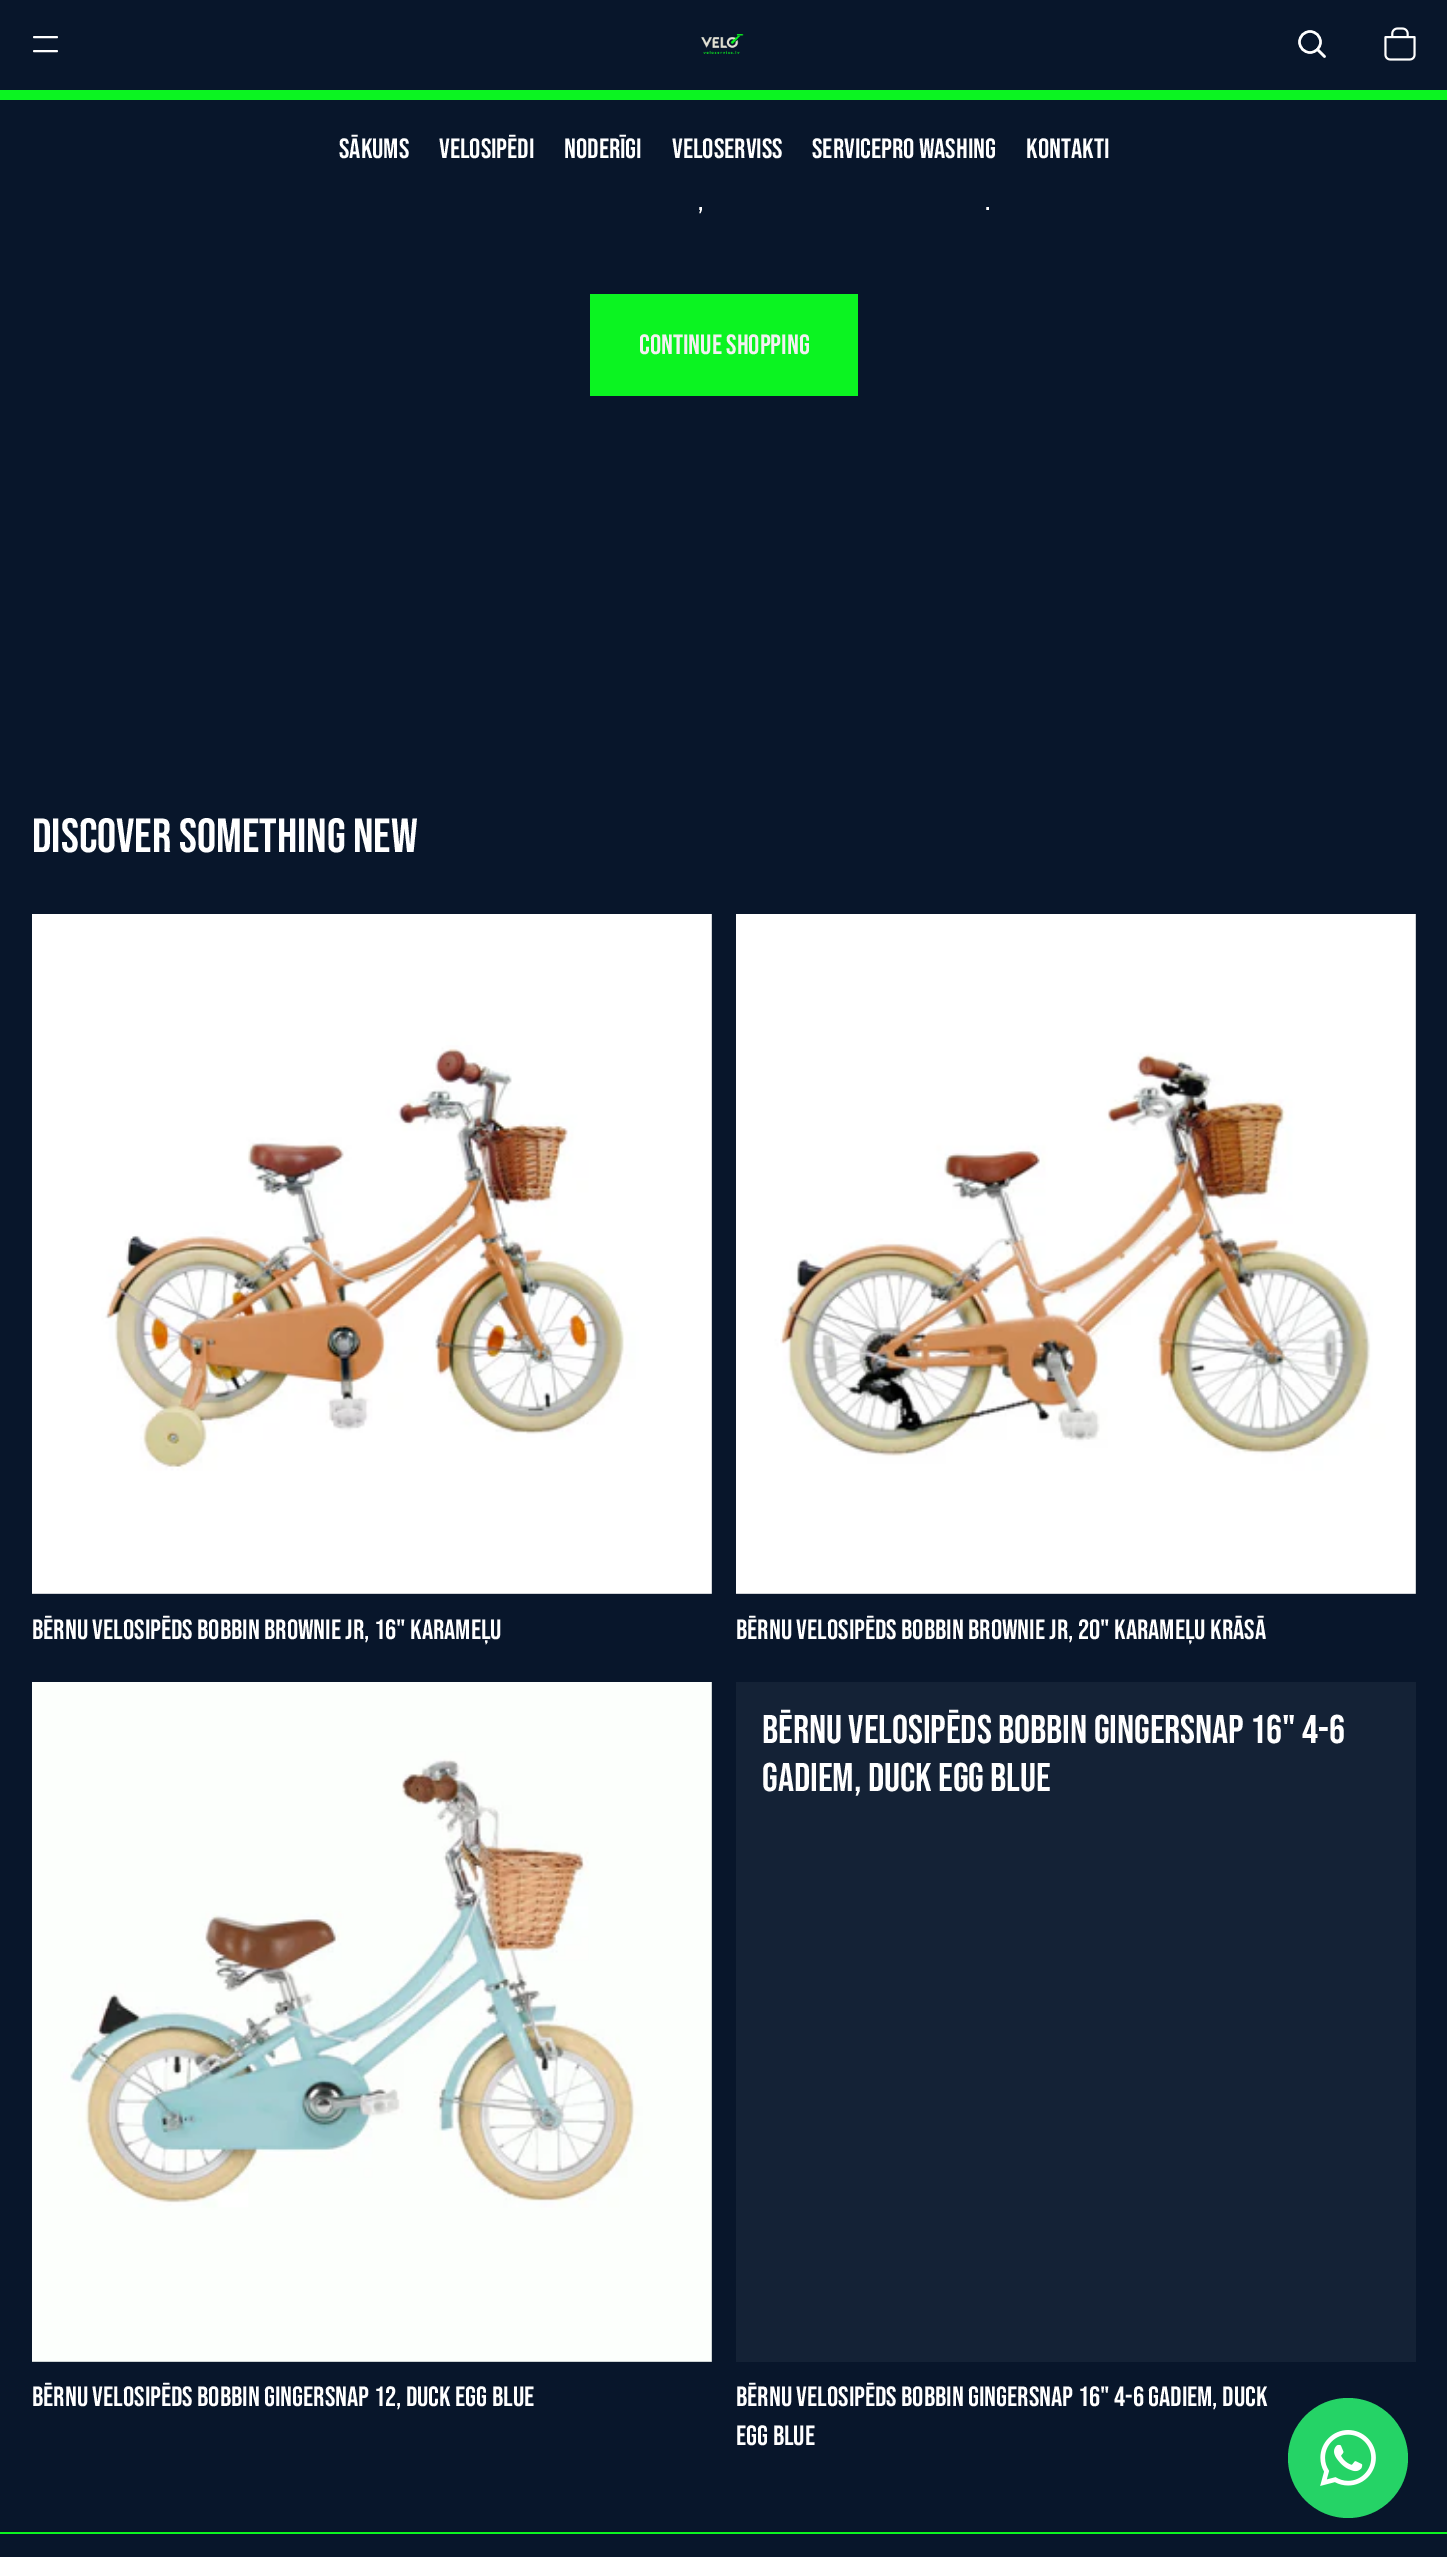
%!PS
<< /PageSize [1447 2557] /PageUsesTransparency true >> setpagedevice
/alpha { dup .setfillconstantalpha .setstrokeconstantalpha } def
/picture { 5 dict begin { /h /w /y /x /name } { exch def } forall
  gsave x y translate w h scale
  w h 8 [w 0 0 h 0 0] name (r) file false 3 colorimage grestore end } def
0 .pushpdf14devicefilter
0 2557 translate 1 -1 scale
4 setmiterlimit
0.031 0.086 0.169 setrgbcolor
0 0 1447 2557 rectfill
0.043 0.957 0.129 setrgbcolor
0 90 1447 10 rectfill
1 setgray
1.9 setlinewidth
1 setlinecap
newpath 34 37 moveto 57 37 lineto 34 51 moveto 57 51 lineto stroke
(img1.rgb) 700 34 44 20 picture
2.2 setlinewidth
0 setlinecap
newpath 1310 42 10.5 0 360 arc closepath stroke
1 setlinecap
1 setlinejoin
newpath 1317.5 49.5 moveto 1324.5 56.5 lineto stroke
0.7 alpha
0 setlinecap
0 setlinejoin
newpath 1310 42 10.5 0 360 arc closepath stroke
1 setlinecap
1 setlinejoin
newpath 1317.5 49.5 moveto 1324.5 56.5 lineto stroke
1 alpha
(img2.rgb) 1384 27 32 34 picture
/BebasNeue-Regular [28 0 0 -28 0 0] selectfont
339 158 moveto (SĀKUMS) show
439 158 moveto (VELOSIPĒDI) show
564 158 moveto (NODERĪGI) show
672 158 moveto (VELOSERVISS) show
812 158 moveto (SERVICEPRO WASHING) show
1026 158 moveto (KONTAKTI) show
698 210 moveto (,) show
985 210 moveto (.) show
0.043 0.957 0.129 setrgbcolor
590 294 268 102 rectfill
0.957 0.941 0.949 setrgbcolor
639 354 moveto (Continue shopping) show
/BebasNeue-Regular [48 0 0 -48 0 0] selectfont
1 setgray
32 852 moveto (Discover something new) show
(img3.rgb) 32 914 680 680 picture
/BebasNeue-Regular [28 0 0 -28 0 0] selectfont
32 1639 moveto (Bērnu velosipēds BOBBIN Brownie JR, 16" Karameļu) show
(img4.rgb) 736 914 680 680 picture
736 1639 moveto (Bērnu velosipēds BOBBIN Brownie JR, 20" Karameļu krāsā) show
(img5.rgb) 32 1682 680 680 picture
32 2406 moveto (Bērnu velosipēds Bobbin Gingersnap 12, Duck Egg Blue) show
0.078 0.133 0.212 setrgbcolor
736 1682 680 680 rectfill
/BebasNeue-Regular [40 0 0 -40 0 0] selectfont
1 setgray
762 1743 moveto (Bērnu velosipēds Bobbin Gingersnap 16" 4-6) show
762 1791 moveto (gadiem, Duck Egg Blue) show
/BebasNeue-Regular [28 0 0 -28 0 0] selectfont
736 2406 moveto (Bērnu velosipēds Bobbin Gingersnap 16" 4-6 gadiem, Duck) show
736 2445 moveto (Egg Blue) show
0.145 0.827 0.4 setrgbcolor
newpath 1348 2458 60 0 360 arc closepath fill
(img6.rgb) 1320 2430 56 56 picture
0.043 0.957 0.129 setrgbcolor
0 2532 1447 2 rectfill
.poppdf14devicefilter showpage
